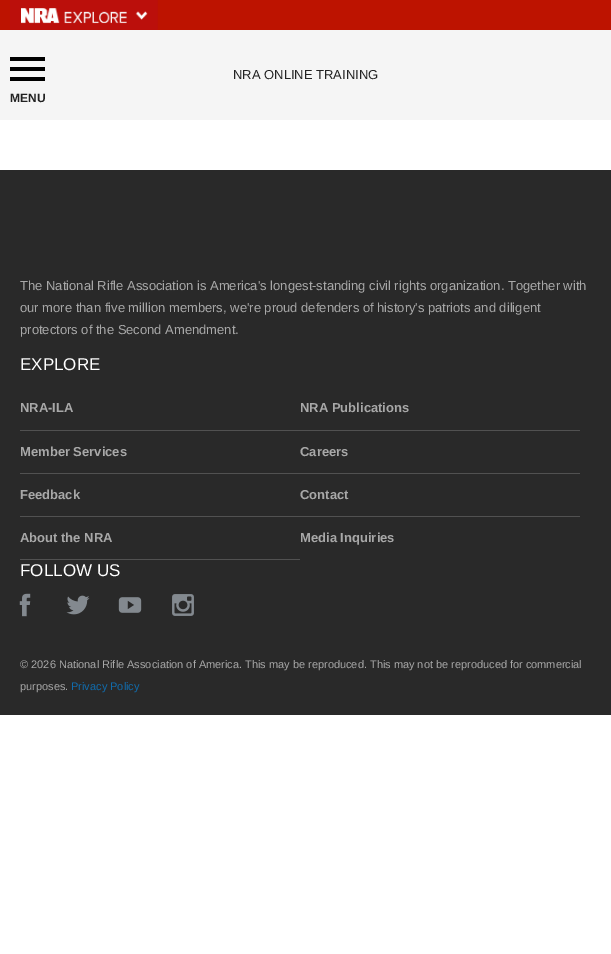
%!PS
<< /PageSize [611 954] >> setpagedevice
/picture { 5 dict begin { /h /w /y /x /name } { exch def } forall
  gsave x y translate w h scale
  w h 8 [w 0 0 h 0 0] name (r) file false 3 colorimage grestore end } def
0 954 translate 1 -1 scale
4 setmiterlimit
1 setgray
0 0 611 954 rectfill
0.741 0.075 0 setrgbcolor
0 0 611 30 rectfill
(img1.rgb) 10 0 148 30 picture
0.961 setgray
0 30 611 90 rectfill
/LiberationSans-Regular [13 0 0 -13 0 0] selectfont
0.133 setgray
233 79 moveto (NRA ONLINE TRAINING) show
0 setgray
10 67 35 4 rectfill
10 57 35 4 rectfill
10 77 35 4 rectfill
/LiberationSans-Bold [12 0 0 -12 0 0] selectfont
0.133 setgray
10 102 moveto (MENU) show
0.161 setgray
0 170 611 545 rectfill
/LiberationSans-Regular [13 0 0 -13 0 0] selectfont
0.659 setgray
20 290 moveto (The National Rifle Association is America's longest-standing civil rights organization. Together with) show
20 312 moveto (our more than five million members, we're proud defenders of history's patriots and diligent) show
20 334 moveto (protectors of the Second Amendment.) show
/LiberationSans-Regular [17 0 0 -17 0 0] selectfont
1 setgray
20 370 moveto (EXPLORE) show
0.318 setgray
20 430 560 1 rectfill
/LiberationSans-Bold [13 0 0 -13 0 0] selectfont
0.659 setgray
20 412 moveto (NRA-ILA) show
300 412 moveto (NRA Publications) show
0.318 setgray
20 473 560 1 rectfill
0.659 setgray
20 456 moveto (Member Services) show
300 456 moveto (Careers) show
0.318 setgray
20 516 560 1 rectfill
0.659 setgray
20 499 moveto (Feedback) show
300 499 moveto (Contact) show
0.318 setgray
20 559 280 1 rectfill
0.659 setgray
20 542 moveto (About the NRA) show
300 542 moveto (Media Inquiries) show
/LiberationSans-Regular [17 0 0 -17 0 0] selectfont
1 setgray
20 576 moveto (FOLLOW US) show
(img2.rgb) 19 593 12 24 picture
(img3.rgb) 66 595 24 20 picture
(img4.rgb) 118 597 24 16 picture
(img5.rgb) 172 594 22 22 picture
/LiberationSans-Regular [11 0 0 -11 0 0] selectfont
0.659 setgray
20 668 moveto (© 2026 National Rifle Association of America. This may be reproduced. This may not be reproduced for commercial) show
20 690 moveto (purposes.) show
0.067 0.424 0.675 setrgbcolor
71 690 moveto (Privacy Policy) show
showpage
